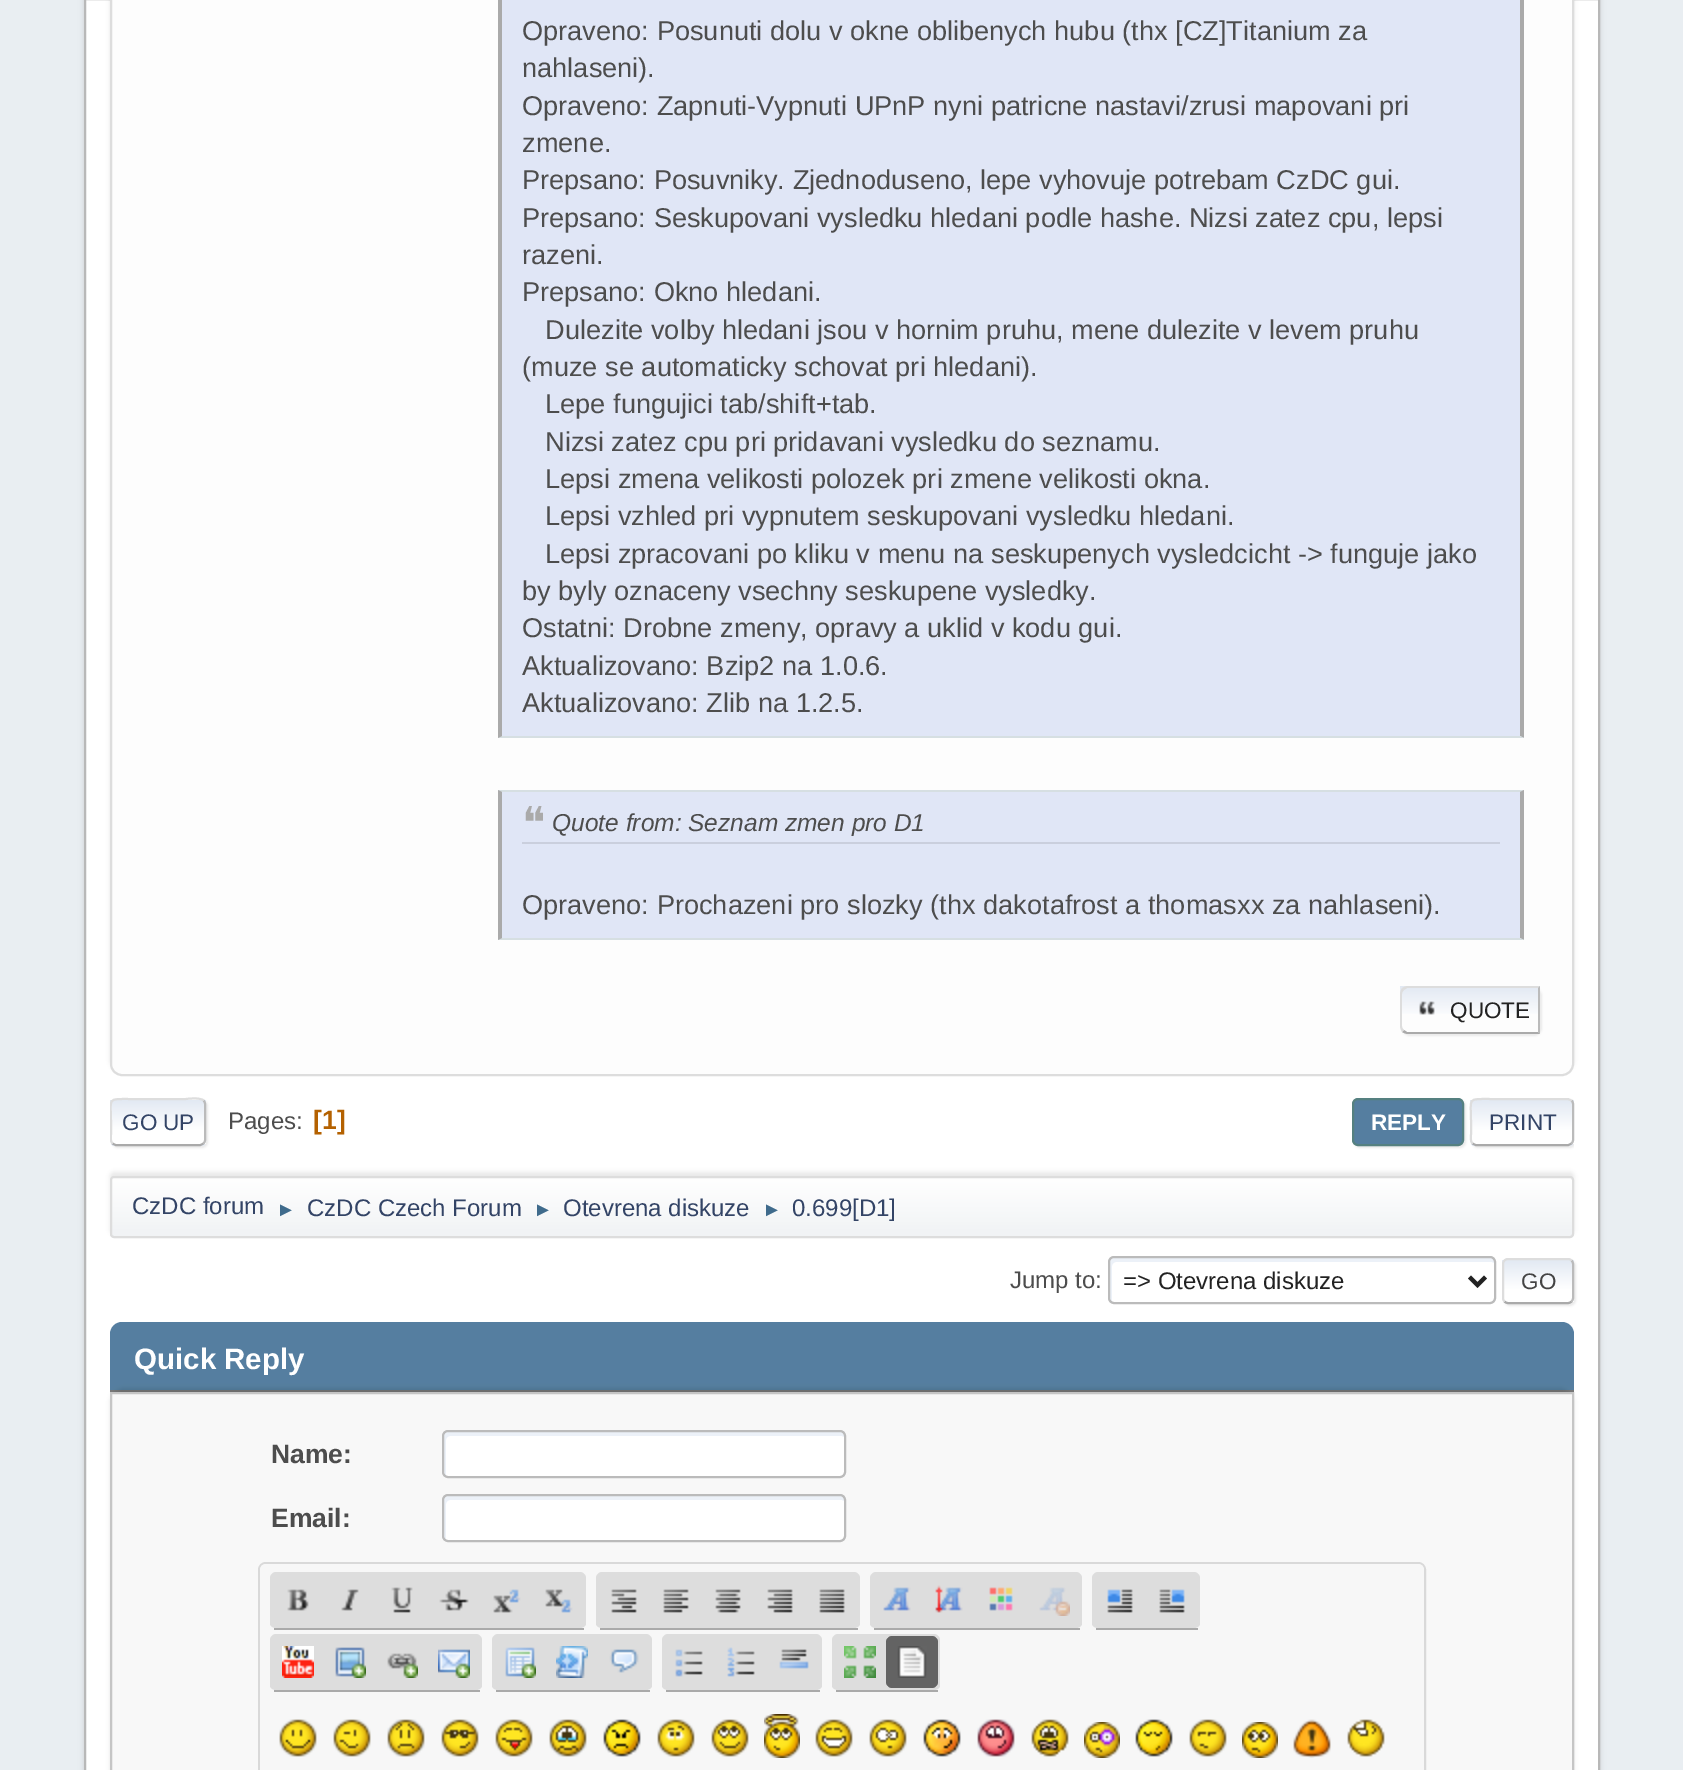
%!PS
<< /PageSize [1683 1770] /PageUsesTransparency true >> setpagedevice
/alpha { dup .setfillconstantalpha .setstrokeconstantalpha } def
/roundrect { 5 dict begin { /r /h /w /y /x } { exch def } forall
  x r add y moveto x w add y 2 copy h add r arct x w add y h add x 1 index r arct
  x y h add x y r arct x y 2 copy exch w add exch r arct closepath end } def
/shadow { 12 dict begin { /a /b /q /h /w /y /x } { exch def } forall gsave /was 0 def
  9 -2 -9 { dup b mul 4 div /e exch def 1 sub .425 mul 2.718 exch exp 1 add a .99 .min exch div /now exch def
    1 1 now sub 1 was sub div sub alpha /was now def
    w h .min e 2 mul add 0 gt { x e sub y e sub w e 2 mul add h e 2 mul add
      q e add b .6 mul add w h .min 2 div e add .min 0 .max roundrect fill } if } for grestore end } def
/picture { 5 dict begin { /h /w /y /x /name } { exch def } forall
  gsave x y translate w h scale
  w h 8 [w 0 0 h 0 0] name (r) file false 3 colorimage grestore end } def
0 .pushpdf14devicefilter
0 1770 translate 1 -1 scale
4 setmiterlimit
0.914 0.933 0.949 setrgbcolor
0 0 1683 1770 rectfill
0 setgray
84 -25 1516 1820 16 3 0.14 shadow
1 setgray
newpath 85 -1 moveto 1599 -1 lineto 1599 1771 lineto 85 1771 lineto closepath gsave fill grestore
0.722 setgray
2 setlinewidth
stroke
0 setgray
110 -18 1464 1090 12 2 0.1 shadow
0.992 setgray
111 -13 1462 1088 11 roundrect gsave fill grestore
0.867 setgray
stroke
0.878 0.902 0.965 setrgbcolor
502 0 1018 736 rectfill
0.667 setgray
newpath 1524 -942 moveto 1524 738 lineto 1520 736 lineto 1520 -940 lineto closepath fill
0.839 0.875 0.886 setrgbcolor
newpath 1524 738 moveto 498 738 lineto 502 736 lineto 1520 736 lineto closepath fill
0.667 setgray
newpath 498 738 moveto 498 -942 lineto 502 -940 lineto 502 736 lineto closepath fill
/LiberationSans-Regular [27.2 0 0 -27.2 0 0] selectfont
0.302 setgray
522 40 moveto (Opraveno: Posunuti dolu v okne oblibenych hubu \(thx [CZ]Titanium za) show
522 77 moveto (nahlaseni\).) show
522 115 moveto (Opraveno: Zapnuti-Vypnuti UPnP nyni patricne nastavi/zrusi mapovani pri) show
522 152 moveto (zmene.) show
522 189 moveto (Prepsano: Posuvniky. Zjednoduseno, lepe vyhovuje potrebam CzDC gui.) show
522 227 moveto (Prepsano: Seskupovani vysledku hledani podle hashe. Nizsi zatez cpu, lepsi) show
522 264 moveto (razeni.) show
522 301 moveto (Prepsano: Okno hledani.) show
545 339 moveto (Dulezite volby hledani jsou v hornim pruhu, mene dulezite v levem pruhu) show
522 376 moveto (\(muze se automaticky schovat pri hledani\).) show
545 413 moveto (Lepe fungujici tab/shift+tab.) show
545 451 moveto (Nizsi zatez cpu pri pridavani vysledku do seznamu.) show
545 488 moveto (Lepsi zmena velikosti polozek pri zmene velikosti okna.) show
545 525 moveto (Lepsi vzhled pri vypnutem seskupovani vysledku hledani.) show
545 563 moveto (Lepsi zpracovani po kliku v menu na seskupenych vysledcicht -> funguje jako) show
522 600 moveto (by byly oznaceny vsechny seskupene vysledky.) show
522 637 moveto (Ostatni: Drobne zmeny, opravy a uklid v kodu gui.) show
522 675 moveto (Aktualizovano: Bzip2 na 1.0.6.) show
522 712 moveto (Aktualizovano: Zlib na 1.2.5.) show
0.878 0.902 0.965 setrgbcolor
502 792 1018 146 rectfill
0.839 0.875 0.886 setrgbcolor
newpath 498 790 moveto 1524 790 lineto 1520 792 lineto 502 792 lineto closepath fill
0.667 setgray
newpath 1524 790 moveto 1524 940 lineto 1520 938 lineto 1520 792 lineto closepath fill
0.839 0.875 0.886 setrgbcolor
newpath 1524 940 moveto 498 940 lineto 502 938 lineto 1520 938 lineto closepath fill
0.667 setgray
newpath 498 940 moveto 498 790 lineto 502 792 lineto 502 938 lineto closepath fill
0.792 0.812 0.867 setrgbcolor
522 842 978 2 rectfill
/DejaVuSans-Regular [44 0 0 -44 0 0] selectfont
0.667 setgray
522 838 moveto (❝) show
/LiberationSans-Italic [24.5 0 0 -24.5 0 0] selectfont
0.302 setgray
552 831 moveto (Quote from: Seznam zmen pro D1) show
/LiberationSans-Regular [27.2 0 0 -27.2 0 0] selectfont
522 914 moveto (Opraveno: Prochazeni pro slozky \(thx dakotafrost a thomasxx za nahlaseni\).) show
gsave newpath 1400 986 moveto 1540 986 lineto 1540 1014 lineto 1400 1014 lineto closepath clip newpath
<< /ShadingType 2 /ColorSpace /DeviceRGB /Coords [1470 986 1470 1034] /Extend [true true] /Function << /FunctionType 3 /Domain [0 1] /Functions [<< /FunctionType 2 /Domain [0 1] /C0 [0.886 0.914 0.953] /C1 [1 1 1] /N 1 >> << /FunctionType 2 /Domain [0 1] /C0 [1 1 1] /C1 [1 1 1] /N 1 >>] /Bounds [0.7] /Encode [0 1 0 1] >> >> shfill grestore
gsave
newpath 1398 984 moveto 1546 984 lineto 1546 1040 lineto 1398 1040 lineto closepath 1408 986 moveto 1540 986 lineto 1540 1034 lineto 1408 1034 lineto 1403.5 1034 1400 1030.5 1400 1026 curveto 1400 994 lineto 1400 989.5 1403.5 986 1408 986 curveto closepath eoclip newpath
0.867 setgray
1402 988 140 48 8 1 0.57 shadow
grestore
0.867 setgray
newpath 1408 986 moveto 1406 986 1404 987 1402 988 curveto 1404 990 lineto 1407 988 lineto 1538 988 lineto 1540 986 lineto closepath fill
0.733 setgray
newpath 1540 986 moveto 1538 988 lineto 1538 1032 lineto 1540 1034 lineto closepath fill
0.667 setgray
newpath 1540 1034 moveto 1538 1032 lineto 1407 1032 lineto 1404 1030 lineto 1402 1032 lineto 1404 1033 1406 1034 1408 1034 curveto closepath fill
0.867 setgray
newpath 1400 994 moveto 1400 1026 lineto 1400 1028 1401 1030 1402 1032 curveto 1404 1030 lineto 1403 1029 1402 1028 1402 1026 curveto 1402 994 lineto 1402 992 1403 991 1404 990 curveto 1402 988 lineto 1401 990 1400 992 1400 994 curveto closepath fill
(img1.rgb) 1419 1001 16 14 picture
/LiberationSans-Regular [22.5 0 0 -22.5 0 0] selectfont
0.133 setgray
1450 1018 moveto (QUOTE) show
0.867 setgray
112 1100 96 48 6 1 0.57 shadow
1 setgray
110 1098 96 48 6 roundrect fill
gsave
110 1098 96 48 6 roundrect clip newpath
gsave newpath 110 1100 moveto 206 1100 lineto 206 1144 lineto 110 1144 lineto closepath clip newpath
<< /ShadingType 2 /ColorSpace /DeviceRGB /Coords [158 1100 158 1144] /Extend [true true] /Function << /FunctionType 3 /Domain [0 1] /Functions [<< /FunctionType 2 /Domain [0 1] /C0 [0.886 0.914 0.953] /C1 [1 1 1] /N 1 >> << /FunctionType 2 /Domain [0 1] /C0 [1 1 1] /C1 [1 1 1] /N 1 >>] /Bounds [0.7] /Encode [0 1 0 1] >> >> shfill grestore
gsave newpath 110 1144 moveto 206 1144 lineto 206 1146 lineto 110 1146 lineto closepath clip newpath
<< /ShadingType 2 /ColorSpace /DeviceRGB /Coords [158 1144 158 1188] /Extend [true true] /Function << /FunctionType 3 /Domain [0 1] /Functions [<< /FunctionType 2 /Domain [0 1] /C0 [0.886 0.914 0.953] /C1 [1 1 1] /N 1 >> << /FunctionType 2 /Domain [0 1] /C0 [1 1 1] /C1 [1 1 1] /N 1 >>] /Bounds [0.7] /Encode [0 1 0 1] >> >> shfill grestore
grestore
0.733 setgray
newpath 203.5 1100.5 moveto 204.5 1101.5 205 1102.5 205 1104 curveto 205 1140 lineto 205 1141.5 204.5 1142.5 203.5 1143.5 curveto stroke
0.667 setgray
newpath 203.5 1143.5 moveto 200.5 1145 lineto 115.5 1145 lineto 112.5 1143.5 lineto stroke
gsave
110 1084 1464 76 rectclip
0.867 setgray
newpath 112.5 1143.5 moveto 110 1141 111 1136.5 111 1134 curveto 111 1122 lineto 111 1097.5 106.5 1099 130 1099 curveto 186 1099 lineto 186 1099 200 1097 203.5 1100.5 curveto stroke
grestore
0.2 0.267 0.4 setrgbcolor
122 1130 moveto (GO UP) show
/LiberationSans-Regular [24 0 0 -24 0 0] selectfont
0.302 setgray
228 1129 moveto (Pages:) show
/LiberationSans-Bold [26.5 0 0 -26.5 0 0] selectfont
0.706 0.38 0 setrgbcolor
313 1129 moveto ([1]) show
0.867 setgray
1354 1100 112 48 6 1 0.57 shadow
0.333 0.494 0.627 setrgbcolor
1353 1099 110 46 5 roundrect gsave fill grestore
0.333 0.502 0.502 setrgbcolor
stroke
/LiberationSans-Bold [22.5 0 0 -22.5 0 0] selectfont
1 setgray
1371 1130 moveto (REPLY) show
gsave
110 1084 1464 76 rectclip
0.867 setgray
1472 1100 104 48 6 1 0.57 shadow
grestore
1470 1098 104 48 6 roundrect fill
gsave
1470 1098 104 48 6 roundrect clip newpath
gsave newpath 1470 1100 moveto 1574 1100 lineto 1574 1144 lineto 1470 1144 lineto closepath clip newpath
<< /ShadingType 2 /ColorSpace /DeviceRGB /Coords [1522 1100 1522 1144] /Extend [true true] /Function << /FunctionType 3 /Domain [0 1] /Functions [<< /FunctionType 2 /Domain [0 1] /C0 [0.886 0.914 0.953] /C1 [1 1 1] /N 1 >> << /FunctionType 2 /Domain [0 1] /C0 [1 1 1] /C1 [1 1 1] /N 1 >>] /Bounds [0.7] /Encode [0 1 0 1] >> >> shfill grestore
gsave newpath 1470 1144 moveto 1574 1144 lineto 1574 1146 lineto 1470 1146 lineto closepath clip newpath
<< /ShadingType 2 /ColorSpace /DeviceRGB /Coords [1522 1144 1522 1188] /Extend [true true] /Function << /FunctionType 3 /Domain [0 1] /Functions [<< /FunctionType 2 /Domain [0 1] /C0 [0.886 0.914 0.953] /C1 [1 1 1] /N 1 >> << /FunctionType 2 /Domain [0 1] /C0 [1 1 1] /C1 [1 1 1] /N 1 >>] /Bounds [0.7] /Encode [0 1 0 1] >> >> shfill grestore
grestore
0.733 setgray
newpath 1571.5 1100.5 moveto 1572.5 1101.5 1573 1102.5 1573 1104 curveto 1573 1140 lineto 1573 1141.5 1572.5 1142.5 1571.5 1143.5 curveto stroke
0.667 setgray
newpath 1571.5 1143.5 moveto 1568.5 1145 lineto 1475.5 1145 lineto 1472.5 1143.5 lineto stroke
0.867 setgray
newpath 1472.5 1143.5 moveto 1470 1141 1471 1136.5 1471 1134 curveto 1471 1122 lineto 1471 1097 1466.5 1099 1491.5 1099 curveto 1568 1099 lineto 1571.5 1100.5 lineto stroke
/LiberationSans-Regular [22.5 0 0 -22.5 0 0] selectfont
0.2 0.267 0.4 setrgbcolor
1489 1130 moveto (PRINT) show
0 setgray
110 1172 1464 62 4 2 0.08 shadow
gsave
110 1176 1464 62 4 roundrect clip newpath
gsave newpath 110 1178 moveto 1574 1178 lineto 1574 1236 lineto 110 1236 lineto closepath clip newpath
<< /ShadingType 2 /ColorSpace /DeviceRGB /Coords [842 1178 842 1236] /Extend [true true] /Function << /FunctionType 3 /Domain [0 1] /Functions [<< /FunctionType 2 /Domain [0 1] /C0 [1 1 1] /C1 [0.945 0.953 0.961] /N 1 >> << /FunctionType 2 /Domain [0 1] /C0 [0.945 0.953 0.961] /C1 [0.945 0.953 0.961] /N 1 >>] /Bounds [0.95] /Encode [0 1 0 1] >> >> shfill grestore
grestore
0.867 setgray
111 1177 1462 60 3 roundrect stroke
/LiberationSans-Regular [24 0 0 -24 0 0] selectfont
0.2 0.267 0.4 setrgbcolor
132 1214 moveto (CzDC forum) show
/LiberationSans-Regular [20 0 0 -20 0 0] selectfont
0.247 0.42 0.549 setrgbcolor
276 1216 moveto (►) show
/LiberationSans-Regular [24 0 0 -24 0 0] selectfont
0.2 0.267 0.4 setrgbcolor
307 1216 moveto (CzDC Czech Forum) show
/LiberationSans-Regular [20 0 0 -20 0 0] selectfont
0.247 0.42 0.549 setrgbcolor
533 1216 moveto (►) show
/LiberationSans-Regular [24 0 0 -24 0 0] selectfont
0.2 0.267 0.4 setrgbcolor
563 1216 moveto (Otevrena diskuze) show
/LiberationSans-Regular [20 0 0 -20 0 0] selectfont
0.247 0.42 0.549 setrgbcolor
762 1216 moveto (►) show
/LiberationSans-Regular [24 0 0 -24 0 0] selectfont
0.2 0.267 0.4 setrgbcolor
792 1216 moveto (0.699[D1]) show
0.302 setgray
1010 1288 moveto (Jump to:) show
0.925 0.945 0.973 setrgbcolor
newpath 1116 1262 moveto 1492 1262 lineto 1494 1263 lineto 1494 1262 lineto 1494 1260 1492 1258 1490 1258 curveto 1114 1258 lineto 1112 1258 1110 1260 1110 1262 curveto 1110 1298 lineto 1110 1299 1111 1301 1112 1301 curveto 1112 1266 lineto 1112 1264 1114 1262 1116 1262 curveto closepath fill
0.733 setgray
1109 1257 386 46 5 roundrect stroke
0.133 setgray
4 setlinewidth
newpath 1469.5 1277 moveto 1477.5 1285 lineto 1485.5 1277 lineto stroke
1123 1289 moveto (=> Otevrena diskuze) show
0.867 setgray
1504 1260 72 46 6 1 0.57 shadow
gsave
1502 1258 72 46 6 roundrect clip newpath
gsave newpath 1502 1260 moveto 1574 1260 lineto 1574 1302 lineto 1502 1302 lineto closepath clip newpath
<< /ShadingType 2 /ColorSpace /DeviceRGB /Coords [1538 1260 1538 1302] /Extend [true true] /Function << /FunctionType 3 /Domain [0 1] /Functions [<< /FunctionType 2 /Domain [0 1] /C0 [0.886 0.914 0.953] /C1 [1 1 1] /N 1 >> << /FunctionType 2 /Domain [0 1] /C0 [1 1 1] /C1 [1 1 1] /N 1 >>] /Bounds [0.7] /Encode [0 1 0 1] >> >> shfill grestore
grestore
0.733 setgray
2 setlinewidth
newpath 1571.5 1260.5 moveto 1572.5 1261.5 1573 1262.5 1573 1264 curveto 1573 1298 lineto 1573 1299.5 1572.5 1300.5 1571.5 1301.5 curveto stroke
0.667 setgray
newpath 1571.5 1301.5 moveto 1570.5 1302.5 1569.5 1303 1568 1303 curveto 1508 1303 lineto 1506.5 1303 1505.5 1302.5 1504.5 1301.5 curveto stroke
0.867 setgray
newpath 1504.5 1301.5 moveto 1503.5 1300.5 1503 1299.5 1503 1298 curveto 1503 1264 lineto 1503 1262.5 1503.5 1261.5 1504.5 1260.5 curveto 1505.5 1259.5 1506.5 1259 1508 1259 curveto 1568 1259 lineto 1569.5 1259 1570.5 1259.5 1571.5 1260.5 curveto stroke
/LiberationSans-Regular [22.5 0 0 -22.5 0 0] selectfont
0.267 setgray
1521 1289 moveto (GO) show
0.333 0.494 0.627 setrgbcolor
newpath 122 1322 moveto 1562 1322 lineto 1568.5 1322 1574 1327.5 1574 1334 curveto 1574 1392 lineto 110 1392 lineto 110 1334 lineto 110 1327.5 115.5 1322 122 1322 curveto closepath fill
0.467 setgray
110 1390 1464 2 rectfill
/LiberationSans-Bold [29.5 0 0 -29.5 0 0] selectfont
1 setgray
134 1369 moveto (Quick Reply) show
0 setgray
110 1388 1464 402 14 2 0.1 shadow
0.973 setgray
newpath 111 1393 moveto 1573 1393 lineto 1573 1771 lineto 111 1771 lineto closepath gsave fill grestore
0.773 setgray
stroke
/LiberationSans-Bold [26.5 0 0 -26.5 0 0] selectfont
0.302 setgray
271 1463 moveto (Name:) show
1 setgray
442 1430 404 48 6 roundrect fill
0.925 0.945 0.973 setrgbcolor
newpath 450 1436 moveto 842 1436 lineto 844 1437 lineto 844 1436 lineto 844 1434 842 1432 840 1432 curveto 448 1432 lineto 446 1432 444 1434 444 1436 curveto 444 1472 lineto 444 1473 445 1475 446 1475 curveto 446 1440 lineto 446 1438 448 1436 450 1436 curveto closepath fill
0.733 setgray
443 1431 402 46 5 roundrect stroke
0.302 setgray
271 1527 moveto (Email:) show
1 setgray
442 1494 404 48 6 roundrect fill
0.925 0.945 0.973 setrgbcolor
newpath 450 1500 moveto 842 1500 lineto 844 1501 lineto 844 1500 lineto 844 1498 842 1496 840 1496 curveto 448 1496 lineto 446 1496 444 1498 444 1500 curveto 444 1536 lineto 444 1537 445 1539 446 1539 curveto 446 1504 lineto 446 1502 448 1500 450 1500 curveto closepath fill
0.733 setgray
443 1495 402 46 5 roundrect stroke
0.851 setgray
newpath 266 1563 moveto 1418 1563 lineto 1422 1563 1425 1566 1425 1570 curveto 1425 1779 lineto 259 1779 lineto 259 1570 lineto 259 1566 262 1563 266 1563 curveto closepath stroke
0.969 setgray
newpath 266 1564 moveto 1418 1564 lineto 1421.5 1564 1424 1566.5 1424 1570 curveto 1424 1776 lineto 260 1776 lineto 260 1570 lineto 260 1566.5 262.5 1564 266 1564 curveto closepath fill
0.867 setgray
newpath 276 1572 moveto 580 1572 lineto 583 1572 586 1575 586 1578 curveto 586 1624 lineto 586 1626 583 1628 580 1628 curveto 276 1628 lineto 273 1628 270 1626 270 1624 curveto 270 1578 lineto 270 1575 273 1572 276 1572 curveto closepath fill
0.667 setgray
274 1628 310 2 rectfill
(img2.rgb) 287 1589 22 22 picture
(img3.rgb) 341 1589 18 22 picture
(img4.rgb) 391 1587 22 26 picture
(img5.rgb) 439 1589 30 22 picture
(img6.rgb) 493 1589 28 24 picture
(img7.rgb) 545 1589 28 24 picture
0.867 setgray
newpath 602 1572 moveto 854 1572 lineto 857 1572 860 1575 860 1578 curveto 860 1624 lineto 860 1626 857 1628 854 1628 curveto 602 1628 lineto 599 1628 596 1626 596 1624 curveto 596 1578 lineto 596 1575 599 1572 602 1572 curveto closepath fill
0.667 setgray
600 1628 258 2 rectfill
(img8.rgb) 611 1589 26 24 picture
(img9.rgb) 663 1589 26 24 picture
(img10.rgb) 715 1589 26 24 picture
(img11.rgb) 767 1589 26 24 picture
(img12.rgb) 819 1589 26 24 picture
0.867 setgray
newpath 876 1572 moveto 1076 1572 lineto 1079 1572 1082 1575 1082 1578 curveto 1082 1624 lineto 1082 1626 1079 1628 1076 1628 curveto 876 1628 lineto 873 1628 870 1626 870 1624 curveto 870 1578 lineto 870 1575 873 1572 876 1572 curveto closepath fill
0.667 setgray
874 1628 206 2 rectfill
(img13.rgb) 883 1587 28 24 picture
(img14.rgb) 935 1585 28 28 picture
(img15.rgb) 989 1587 24 24 picture
(img16.rgb) 1039 1587 31 29 picture
0.867 setgray
newpath 1098 1572 moveto 1194 1572 lineto 1197 1572 1200 1575 1200 1578 curveto 1200 1624 lineto 1200 1626 1197 1628 1194 1628 curveto 1098 1628 lineto 1095 1628 1092 1626 1092 1624 curveto 1092 1578 lineto 1092 1575 1095 1572 1098 1572 curveto closepath fill
0.667 setgray
1096 1628 102 2 rectfill
(img17.rgb) 1107 1589 26 24 picture
(img18.rgb) 1159 1589 26 24 picture
0.867 setgray
newpath 276 1634 moveto 476 1634 lineto 479 1634 482 1637 482 1640 curveto 482 1686 lineto 482 1688 479 1690 476 1690 curveto 276 1690 lineto 273 1690 270 1688 270 1686 curveto 270 1640 lineto 270 1637 273 1634 276 1634 curveto closepath fill
0.667 setgray
274 1690 206 2 rectfill
(img19.rgb) 282 1646 32 32 picture
(img20.rgb) 335 1647 31 31 picture
(img21.rgb) 387 1653 31 25 picture
(img22.rgb) 438 1649 32 29 picture
0.867 setgray
newpath 498 1634 moveto 646 1634 lineto 649 1634 652 1637 652 1640 curveto 652 1686 lineto 652 1688 649 1690 646 1690 curveto 498 1690 lineto 495 1690 492 1688 492 1686 curveto 492 1640 lineto 492 1637 495 1634 498 1634 curveto closepath fill
0.667 setgray
496 1690 154 2 rectfill
(img23.rgb) 505 1647 31 31 picture
(img24.rgb) 556 1646 32 32 picture
(img25.rgb) 609 1649 30 24 picture
0.867 setgray
newpath 668 1634 moveto 816 1634 lineto 819 1634 822 1637 822 1640 curveto 822 1686 lineto 822 1688 819 1690 816 1690 curveto 668 1690 lineto 665 1690 662 1688 662 1686 curveto 662 1640 lineto 662 1637 665 1634 668 1634 curveto closepath fill
0.667 setgray
666 1690 154 2 rectfill
(img26.rgb) 675 1649 28 28 picture
(img27.rgb) 727 1647 28 30 picture
(img28.rgb) 779 1649 30 20 picture
0.867 setgray
newpath 838 1634 moveto 934 1634 lineto 937 1634 940 1637 940 1640 curveto 940 1686 lineto 940 1688 937 1690 934 1690 curveto 838 1690 lineto 835 1690 832 1688 832 1686 curveto 832 1640 lineto 832 1637 835 1634 838 1634 curveto closepath fill
0.667 setgray
836 1690 102 2 rectfill
(img29.rgb) 844 1646 32 32 picture
1 setgray
886 1636 52 52 6 roundrect fill
0.2 alpha
0 setgray
newpath 892 1636 moveto 889 1636 886 1639 886 1642 curveto 886 1682 lineto 886 1685 889 1688 892 1688 curveto 932 1688 lineto 935 1688 938 1685 938 1682 curveto 938 1642 lineto 938 1639 935 1636 932 1636 curveto closepath fill
0.3 alpha
newpath 892 1636 moveto 889 1636 886 1639 886 1642 curveto 886 1682 lineto 886 1685 889 1688 892 1688 curveto 932 1688 lineto 935 1688 938 1685 938 1682 curveto 938 1642 lineto 938 1639 935 1636 932 1636 curveto closepath fill
newpath 892 1636 moveto 889 1636 886 1639 886 1642 curveto 886 1682 lineto 886 1685 889 1688 892 1688 curveto 932 1688 lineto 935 1688 938 1685 938 1682 curveto 938 1642 lineto 938 1639 935 1636 932 1636 curveto closepath fill
1 alpha
(img30.rgb) 897 1646 30 32 picture
(img31.rgb) 279 1719 38 38 picture
(img32.rgb) 333 1719 38 38 picture
(img33.rgb) 387 1719 38 38 picture
(img34.rgb) 441 1719 38 38 picture
(img35.rgb) 495 1719 38 38 picture
(img36.rgb) 549 1719 38 38 picture
(img37.rgb) 603 1719 38 38 picture
(img38.rgb) 657 1719 38 38 picture
(img39.rgb) 711 1719 38 38 picture
(img40.rgb) 764 1714 36 44 picture
(img41.rgb) 815 1719 38 38 picture
(img42.rgb) 869 1719 38 38 picture
(img43.rgb) 923 1719 38 38 picture
(img44.rgb) 977 1719 38 38 picture
(img45.rgb) 1031 1719 38 38 picture
(img46.rgb) 1084 1722 36 36 picture
(img47.rgb) 1135 1719 38 38 picture
(img48.rgb) 1189 1719 38 38 picture
(img49.rgb) 1242 1722 36 36 picture
(img50.rgb) 1293 1719 38 39 picture
(img51.rgb) 1347 1719 38 38 picture
.poppdf14devicefilter showpage
